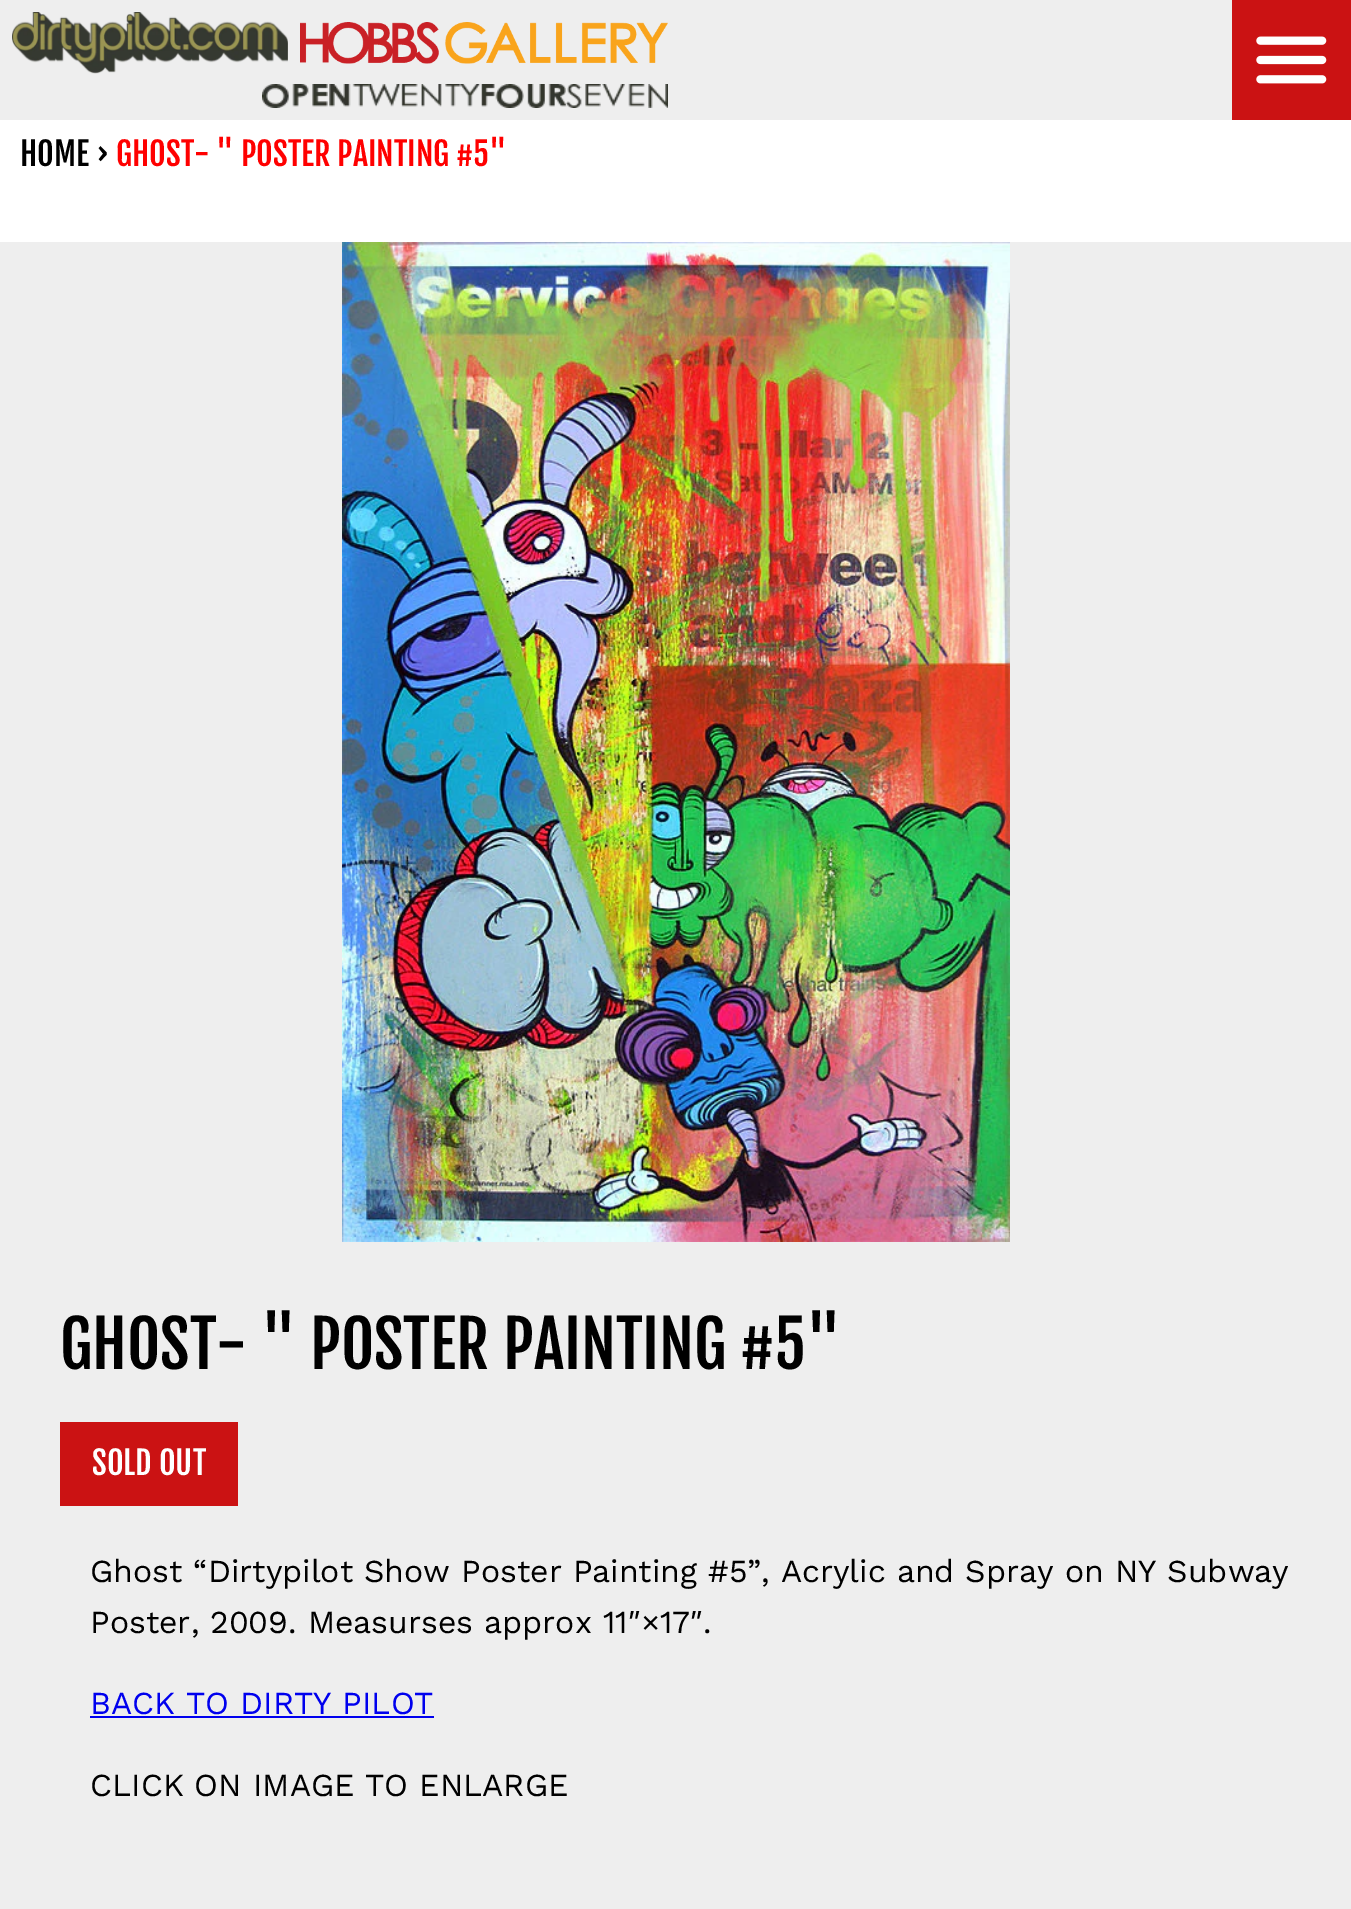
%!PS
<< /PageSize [1351 1909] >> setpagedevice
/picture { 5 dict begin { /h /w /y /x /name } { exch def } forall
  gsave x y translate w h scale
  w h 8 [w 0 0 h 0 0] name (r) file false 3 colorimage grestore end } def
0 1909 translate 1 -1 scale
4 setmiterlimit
1 setgray
0 0 1351 1909 rectfill
0.933 setgray
0 0 1232 120 rectfill
(img1.rgb) 12 12 276 62 picture
(img2.rgb) 300 22 368 42 picture
(img3.rgb) 262 84 406 24 picture
0.796 0.071 0.075 setrgbcolor
1232 0 119 120 rectfill
(img4.rgb) 1256 36 71 48 picture
/FjallaOne-Regular [32 0 0 -32 0 0] selectfont
0 setgray
20 166 moveto (HOME ›) show
1 0 0 setrgbcolor
116 166 moveto (GHOST- " POSTER PAINTING #5") show
0.933 setgray
0 242 1351 1667 rectfill
(img5.rgb) 342 242 668 1000 picture
/FjallaOne-Regular [64 0 0 -64 0 0] selectfont
0 setgray
60 1369 moveto (GHOST- " POSTER PAINTING #5") show
0.796 0.071 0.075 setrgbcolor
60 1422 178 84 rectfill
/FjallaOne-Regular [32 0 0 -32 0 0] selectfont
1 setgray
92 1475 moveto (SOLD OUT) show
/WorkSans-Regular [32 0 0 -32 0 0] selectfont
0 setgray
90 1582 moveto (Ghost “Dirtypilot Show Poster Painting #5”, Acrylic and Spray on NY Subway) show
90 1633 moveto (Poster, 2009. Measurses approx 11″×17″.) show
0 0 0.933 setrgbcolor
90 1714 moveto (BACK TO DIRTY PILOT) show
90 1716 344 2 rectfill
0 setgray
90 1796 moveto (CLICK ON IMAGE TO ENLARGE) show
showpage
